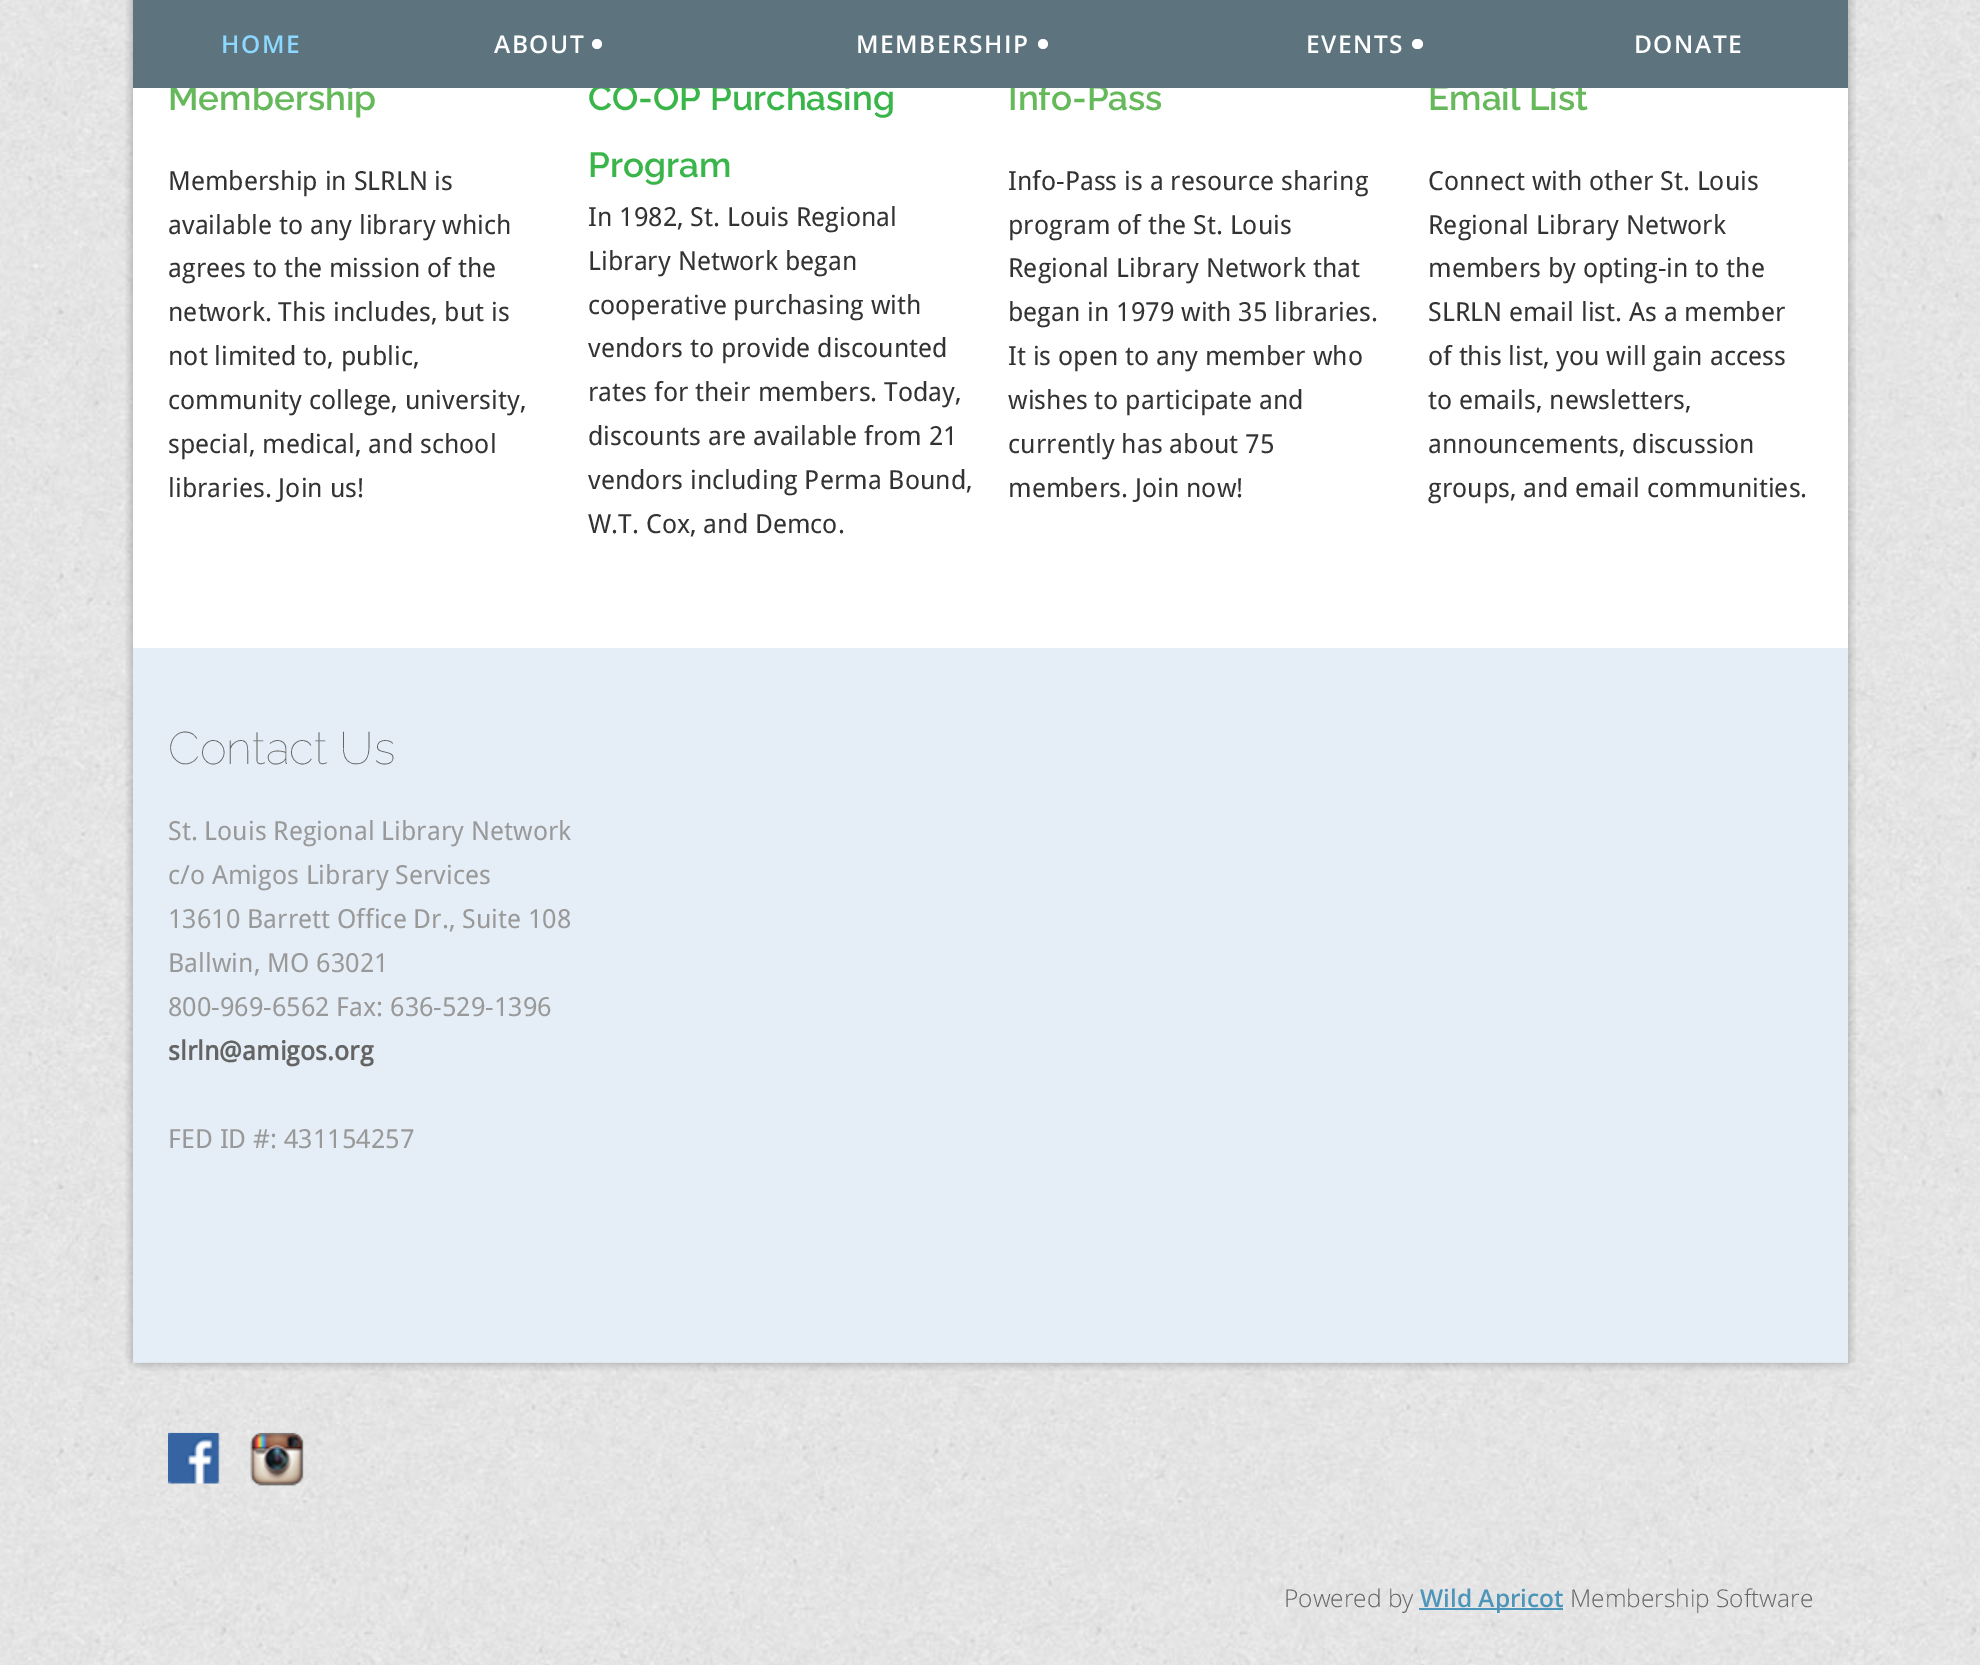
%!PS
<< /PageSize [1980 1665] >> setpagedevice
/roundrect { 5 dict begin { /r /h /w /y /x } { exch def } forall
  x r add y moveto x w add y 2 copy h add r arct x w add y h add x 1 index r arct
  x y h add x y r arct x y 2 copy exch w add exch r arct closepath end } def
/picture { 5 dict begin { /h /w /y /x /name } { exch def } forall
  gsave x y translate w h scale
  w h 8 [w 0 0 h 0 0] name (r) file false 3 colorimage grestore end } def
0 1665 translate 1 -1 scale
4 setmiterlimit
1 setgray
0 0 1980 1665 rectfill
(img1.rgb) 0 0 1980 1665 picture
(img2.rgb) 125 0 1731 647 picture
133 88 1715 560 rectfill
/Raleway-SemiBold [35 0 0 -35 0 0] selectfont
0.4 0.725 0.357 setrgbcolor
168 110 moveto (Membership) show
0.224 0.71 0.29 setrgbcolor
588 110 moveto (CO-OP Purchasing) show
0.4 0.725 0.357 setrgbcolor
1008 110 moveto (Info-Pass) show
1428 110 moveto (Email List) show
0.365 0.455 0.498 setrgbcolor
133 0 1715 88 rectfill
/OpenSans-SemiBold [24.5 0 0 -24.5 0 0] selectfont
0.553 0.847 1 setrgbcolor
221 53 moveto 1.5 0 (HOME) ashow
1 setgray
494 53 moveto 1.5 0 (ABOUT) ashow
newpath 597 44 5 0 360 arc closepath fill
856 53 moveto 1.5 0 (MEMBERSHIP) ashow
newpath 1043 44 5 0 360 arc closepath fill
1306 53 moveto 1.5 0 (EVENTS) ashow
1412 39 11 10 5 roundrect fill
1634 53 moveto 1.5 0 (DONATE) ashow
/DroidSans-Regular [26.25 0 0 -26.25 0 0] selectfont
0.2 setgray
168 190 moveto (Membership in SLRLN is) show
168 234 moveto (available to any library which) show
168 277 moveto (agrees to the mission of the) show
168 321 moveto (network. This includes, but is) show
168 365 moveto (not limited to, public,) show
168 409 moveto (community college, university,) show
168 453 moveto (special, medical, and school) show
168 497 moveto (libraries. Join us!) show
/Raleway-SemiBold [35 0 0 -35 0 0] selectfont
0.224 0.71 0.29 setrgbcolor
588 177 moveto (Program) show
/DroidSans-Regular [26.25 0 0 -26.25 0 0] selectfont
0.2 setgray
588 226 moveto (In 1982, St. Louis Regional) show
588 270 moveto (Library Network began) show
588 314 moveto (cooperative purchasing with) show
588 357 moveto (vendors to provide discounted) show
588 401 moveto (rates for their members. Today,) show
588 445 moveto (discounts are available from 21) show
588 489 moveto (vendors including Perma Bound,) show
588 533 moveto (W.T. Cox, and Demco.) show
1008 190 moveto (Info-Pass is a resource sharing) show
1008 234 moveto (program of the St. Louis) show
1008 277 moveto (Regional Library Network that) show
1008 321 moveto (began in 1979 with 35 libraries.) show
1008 365 moveto (It is open to any member who) show
1008 409 moveto (wishes to participate and) show
1008 453 moveto (currently has about 75) show
1008 497 moveto (members. Join now!) show
1428 190 moveto (Connect with other St. Louis) show
1428 234 moveto (Regional Library Network) show
1428 277 moveto (members by opting-in to the) show
1428 321 moveto (SLRLN email list. As a member) show
1428 365 moveto (of this list, you will gain access) show
1428 409 moveto (to emails, newsletters,) show
1428 453 moveto (announcements, discussion) show
1428 497 moveto (groups, and email communities.) show
(img3.rgb) 125 647 1731 716 picture
0.898 0.933 0.965 setrgbcolor
133 648 1715 715 rectfill
/Raleway-Thin [45.5 0 0 -45.5 0 0] selectfont
0.392 setgray
168 764 moveto (Contact Us) show
/DroidSans-Regular [26.25 0 0 -26.25 0 0] selectfont
0.6 setgray
168 840 moveto (St. Louis Regional Library Network) show
168 884 moveto (c/o Amigos Library Services) show
168 928 moveto (13610 Barrett Office Dr., Suite 108) show
168 972 moveto (Ballwin, MO 63021) show
168 1016 moveto (800-969-6562 Fax: 636-529-1396) show
/DroidSans-Bold [26.25 0 0 -26.25 0 0] selectfont
0.392 setgray
168 1060 moveto (slrln@amigos.org) show
/DroidSans-Regular [26.25 0 0 -26.25 0 0] selectfont
0.6 setgray
168 1148 moveto (FED ID #: 431154257) show
(img4.rgb) 128 1362 1726 8 picture
(img5.rgb) 141 1362 1699 9 picture
(img6.rgb) 168 1432 52 52 picture
(img7.rgb) 250 1432 54 54 picture
/OpenSans-Light [24.5 0 0 -24.5 0 0] selectfont
0.392 setgray
1284 1607 moveto (Powered by) show
0.306 0.584 0.729 setrgbcolor
1419 1608 144 2 rectfill
/OpenSans-SemiBold [24.5 0 0 -24.5 0 0] selectfont
1420 1607 moveto (Wild Apricot) show
/OpenSans-Light [24.5 0 0 -24.5 0 0] selectfont
0.392 setgray
1570 1607 moveto (Membership Software) show
showpage
